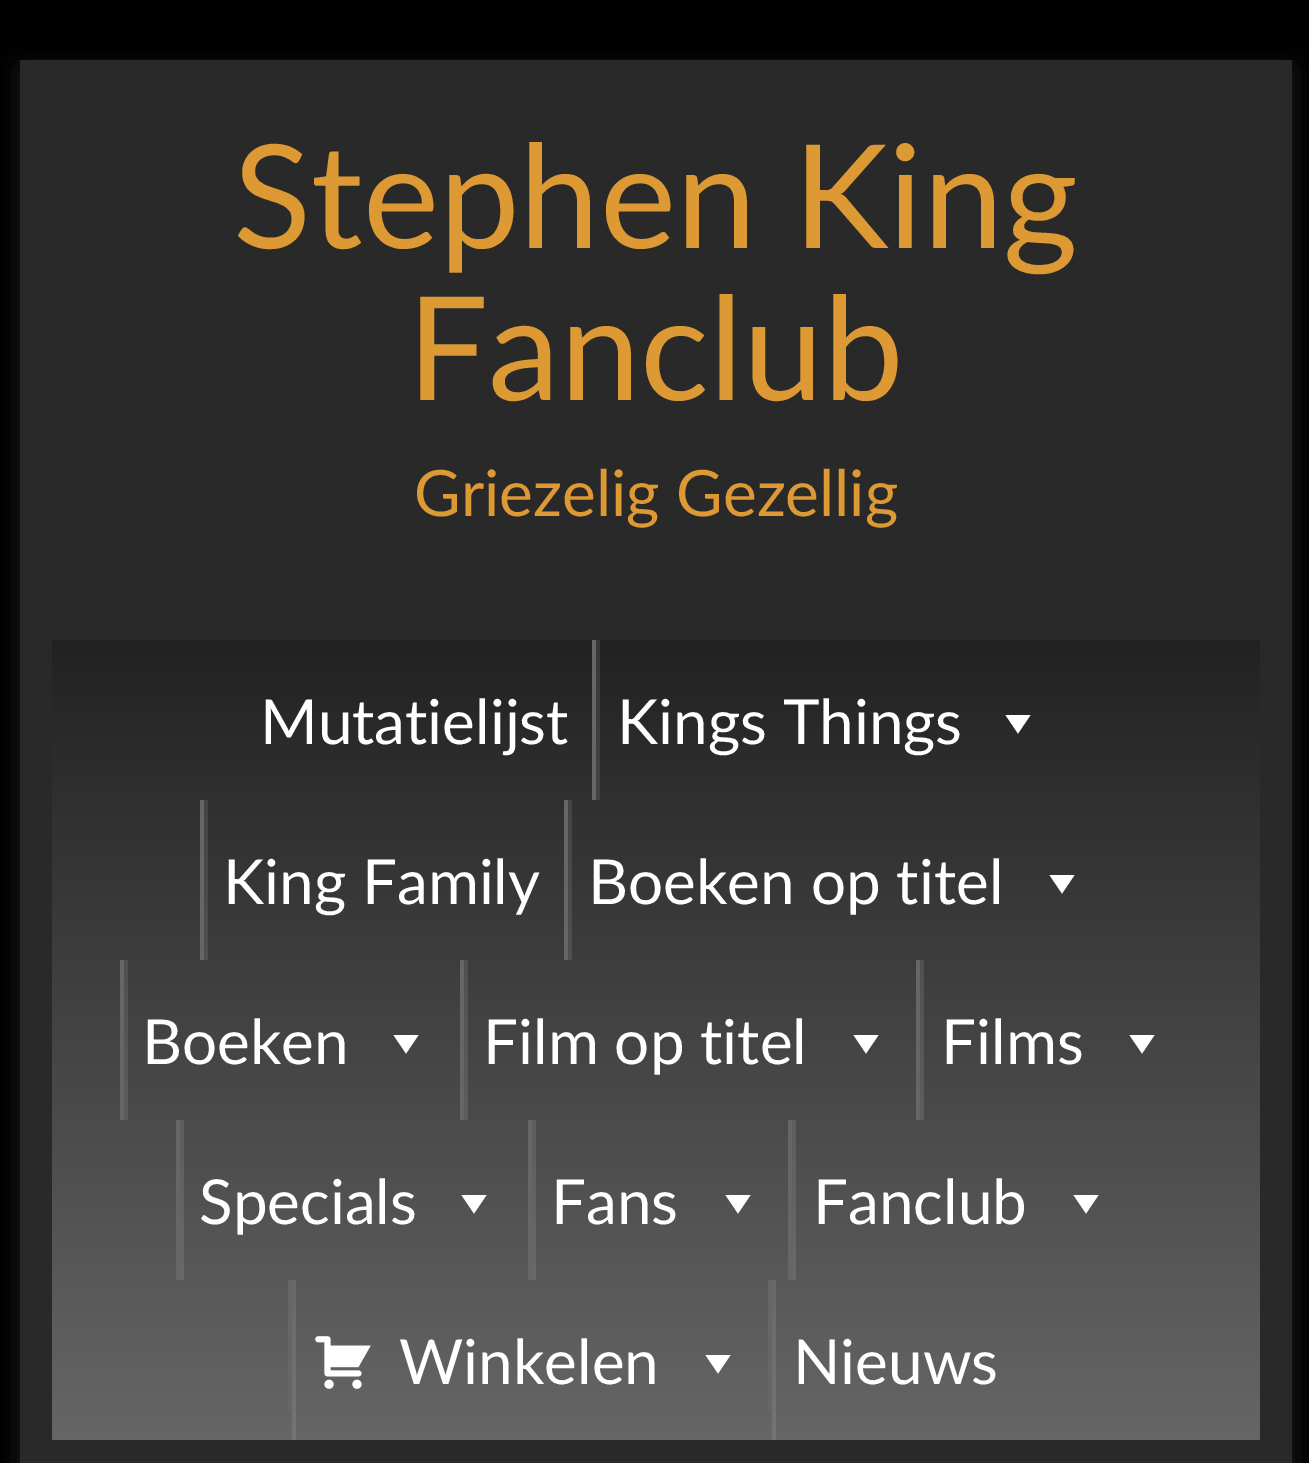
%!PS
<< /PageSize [1309 1463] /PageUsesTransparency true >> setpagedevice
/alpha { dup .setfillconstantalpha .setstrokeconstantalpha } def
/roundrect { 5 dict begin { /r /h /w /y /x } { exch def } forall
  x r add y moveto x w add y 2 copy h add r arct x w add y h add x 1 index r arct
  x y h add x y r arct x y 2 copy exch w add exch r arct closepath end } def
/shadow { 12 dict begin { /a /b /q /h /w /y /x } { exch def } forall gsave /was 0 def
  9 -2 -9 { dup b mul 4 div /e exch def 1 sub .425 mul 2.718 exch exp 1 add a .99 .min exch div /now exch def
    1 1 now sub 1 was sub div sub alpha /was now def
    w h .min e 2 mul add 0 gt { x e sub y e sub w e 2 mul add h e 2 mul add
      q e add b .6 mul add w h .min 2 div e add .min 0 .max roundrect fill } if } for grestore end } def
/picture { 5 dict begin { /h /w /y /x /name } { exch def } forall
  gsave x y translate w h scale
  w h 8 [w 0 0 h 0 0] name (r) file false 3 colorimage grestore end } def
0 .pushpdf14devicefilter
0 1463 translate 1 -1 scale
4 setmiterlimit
0 setgray
0 0 1309 1463 rectfill
0.392 setgray
20 68 1272 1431 0 12 0.3 shadow
0.161 setgray
20 60 1272 1403 rectfill
/Lato-Regular [144 0 0 -144 0 0] selectfont
0.867 0.6 0.2 setrgbcolor
233 248 moveto (Stephen King) show
407 400 moveto (Fanclub) show
/Lato-Regular [64 0 0 -64 0 0] selectfont
414 516 moveto (Griezelig Gezellig) show
gsave newpath 52 640 moveto 1260 640 lineto 1260 1440 lineto 52 1440 lineto closepath clip newpath
<< /ShadingType 2 /ColorSpace /DeviceRGB /Coords [656 640 656 1440] /Extend [true true] /Function << /FunctionType 2 /Domain [0 1] /C0 [0.133 0.133 0.133] /C1 [0.4 0.4 0.4] /N 1 >> >> shfill grestore
gsave newpath 772 1280 moveto 776 1280 lineto 776 1440 lineto 772 1440 lineto closepath clip newpath
<< /ShadingType 2 /ColorSpace /DeviceRGB /Coords [656 640 656 1440] /Extend [true true] /Function << /FunctionType 2 /Domain [0 1] /C0 [0.22 0.22 0.22] /C1 [0.459 0.459 0.459] /N 1 >> >> shfill grestore
gsave newpath 204 800 moveto 208 800 lineto 208 960 lineto 204 960 lineto closepath clip newpath
<< /ShadingType 2 /ColorSpace /DeviceRGB /Coords [656 640 656 1440] /Extend [true true] /Function << /FunctionType 2 /Domain [0 1] /C0 [0.22 0.22 0.22] /C1 [0.459 0.459 0.459] /N 1 >> >> shfill grestore
gsave newpath 292 1280 moveto 296 1280 lineto 296 1440 lineto 292 1440 lineto closepath clip newpath
<< /ShadingType 2 /ColorSpace /DeviceRGB /Coords [656 640 656 1440] /Extend [true true] /Function << /FunctionType 2 /Domain [0 1] /C0 [0.22 0.22 0.22] /C1 [0.459 0.459 0.459] /N 1 >> >> shfill grestore
gsave newpath 792 1120 moveto 796 1120 lineto 796 1280 lineto 792 1280 lineto closepath clip newpath
<< /ShadingType 2 /ColorSpace /DeviceRGB /Coords [656 640 656 1440] /Extend [true true] /Function << /FunctionType 2 /Domain [0 1] /C0 [0.22 0.22 0.22] /C1 [0.459 0.459 0.459] /N 1 >> >> shfill grestore
gsave newpath 532 1120 moveto 536 1120 lineto 536 1280 lineto 532 1280 lineto closepath clip newpath
<< /ShadingType 2 /ColorSpace /DeviceRGB /Coords [656 640 656 1440] /Extend [true true] /Function << /FunctionType 2 /Domain [0 1] /C0 [0.22 0.22 0.22] /C1 [0.459 0.459 0.459] /N 1 >> >> shfill grestore
gsave newpath 180 1120 moveto 184 1120 lineto 184 1280 lineto 180 1280 lineto closepath clip newpath
<< /ShadingType 2 /ColorSpace /DeviceRGB /Coords [656 640 656 1440] /Extend [true true] /Function << /FunctionType 2 /Domain [0 1] /C0 [0.22 0.22 0.22] /C1 [0.459 0.459 0.459] /N 1 >> >> shfill grestore
gsave newpath 920 960 moveto 924 960 lineto 924 1120 lineto 920 1120 lineto closepath clip newpath
<< /ShadingType 2 /ColorSpace /DeviceRGB /Coords [656 640 656 1440] /Extend [true true] /Function << /FunctionType 2 /Domain [0 1] /C0 [0.22 0.22 0.22] /C1 [0.459 0.459 0.459] /N 1 >> >> shfill grestore
gsave newpath 464 960 moveto 468 960 lineto 468 1120 lineto 464 1120 lineto closepath clip newpath
<< /ShadingType 2 /ColorSpace /DeviceRGB /Coords [656 640 656 1440] /Extend [true true] /Function << /FunctionType 2 /Domain [0 1] /C0 [0.22 0.22 0.22] /C1 [0.459 0.459 0.459] /N 1 >> >> shfill grestore
gsave newpath 124 960 moveto 128 960 lineto 128 1120 lineto 124 1120 lineto closepath clip newpath
<< /ShadingType 2 /ColorSpace /DeviceRGB /Coords [656 640 656 1440] /Extend [true true] /Function << /FunctionType 2 /Domain [0 1] /C0 [0.22 0.22 0.22] /C1 [0.459 0.459 0.459] /N 1 >> >> shfill grestore
gsave newpath 568 800 moveto 572 800 lineto 572 960 lineto 568 960 lineto closepath clip newpath
<< /ShadingType 2 /ColorSpace /DeviceRGB /Coords [656 640 656 1440] /Extend [true true] /Function << /FunctionType 2 /Domain [0 1] /C0 [0.22 0.22 0.22] /C1 [0.459 0.459 0.459] /N 1 >> >> shfill grestore
gsave newpath 596 640 moveto 600 640 lineto 600 800 lineto 596 800 lineto closepath clip newpath
<< /ShadingType 2 /ColorSpace /DeviceRGB /Coords [656 640 656 1440] /Extend [true true] /Function << /FunctionType 2 /Domain [0 1] /C0 [0.22 0.22 0.22] /C1 [0.459 0.459 0.459] /N 1 >> >> shfill grestore
/Lato-Regular [62 0 0 -62 0 0] selectfont
1 setgray
260 744 moveto (Mutatielijst) show
0.4 setgray
592 640 4 160 rectfill
1 setgray
617 744 moveto (Kings Things) show
newpath 1030.5 715 moveto 1018 733.5 lineto 1005.5 715 lineto closepath fill
0.4 setgray
200 800 4 160 rectfill
1 setgray
223 904 moveto (King Family) show
0.4 setgray
564 800 4 160 rectfill
1 setgray
588 904 moveto (Boeken op titel) show
newpath 1074.5 875 moveto 1062 893.5 lineto 1049.5 875 lineto closepath fill
0.4 setgray
120 960 4 160 rectfill
1 setgray
142 1064 moveto (Boeken) show
newpath 418.5 1035 moveto 406 1053.5 lineto 393.5 1035 lineto closepath fill
0.4 setgray
460 960 4 160 rectfill
1 setgray
483 1064 moveto (Film op titel) show
newpath 878.5 1035 moveto 866 1053.5 lineto 853.5 1035 lineto closepath fill
0.4 setgray
916 960 4 160 rectfill
1 setgray
941 1064 moveto (Films) show
newpath 1154.5 1035 moveto 1142 1053.5 lineto 1129.5 1035 lineto closepath fill
0.4 setgray
176 1120 4 160 rectfill
1 setgray
199 1224 moveto (Specials) show
newpath 486.5 1195 moveto 474 1213.5 lineto 461.5 1195 lineto closepath fill
0.4 setgray
528 1120 4 160 rectfill
1 setgray
551 1224 moveto (Fans) show
newpath 750.5 1195 moveto 738 1213.5 lineto 725.5 1195 lineto closepath fill
0.4 setgray
788 1120 4 160 rectfill
1 setgray
813 1224 moveto (Fanclub) show
newpath 1098.5 1195 moveto 1086 1213.5 lineto 1073.5 1195 lineto closepath fill
0.4 setgray
288 1280 4 131 rectfill
(img1.rgb) 315 1336 56 53 picture
1 setgray
399 1384 moveto (Winkelen) show
newpath 730.5 1355 moveto 718 1373.5 lineto 705.5 1355 lineto closepath fill
0.4 setgray
768 1280 4 131 rectfill
1 setgray
793 1384 moveto (Nieuws) show
.poppdf14devicefilter showpage
